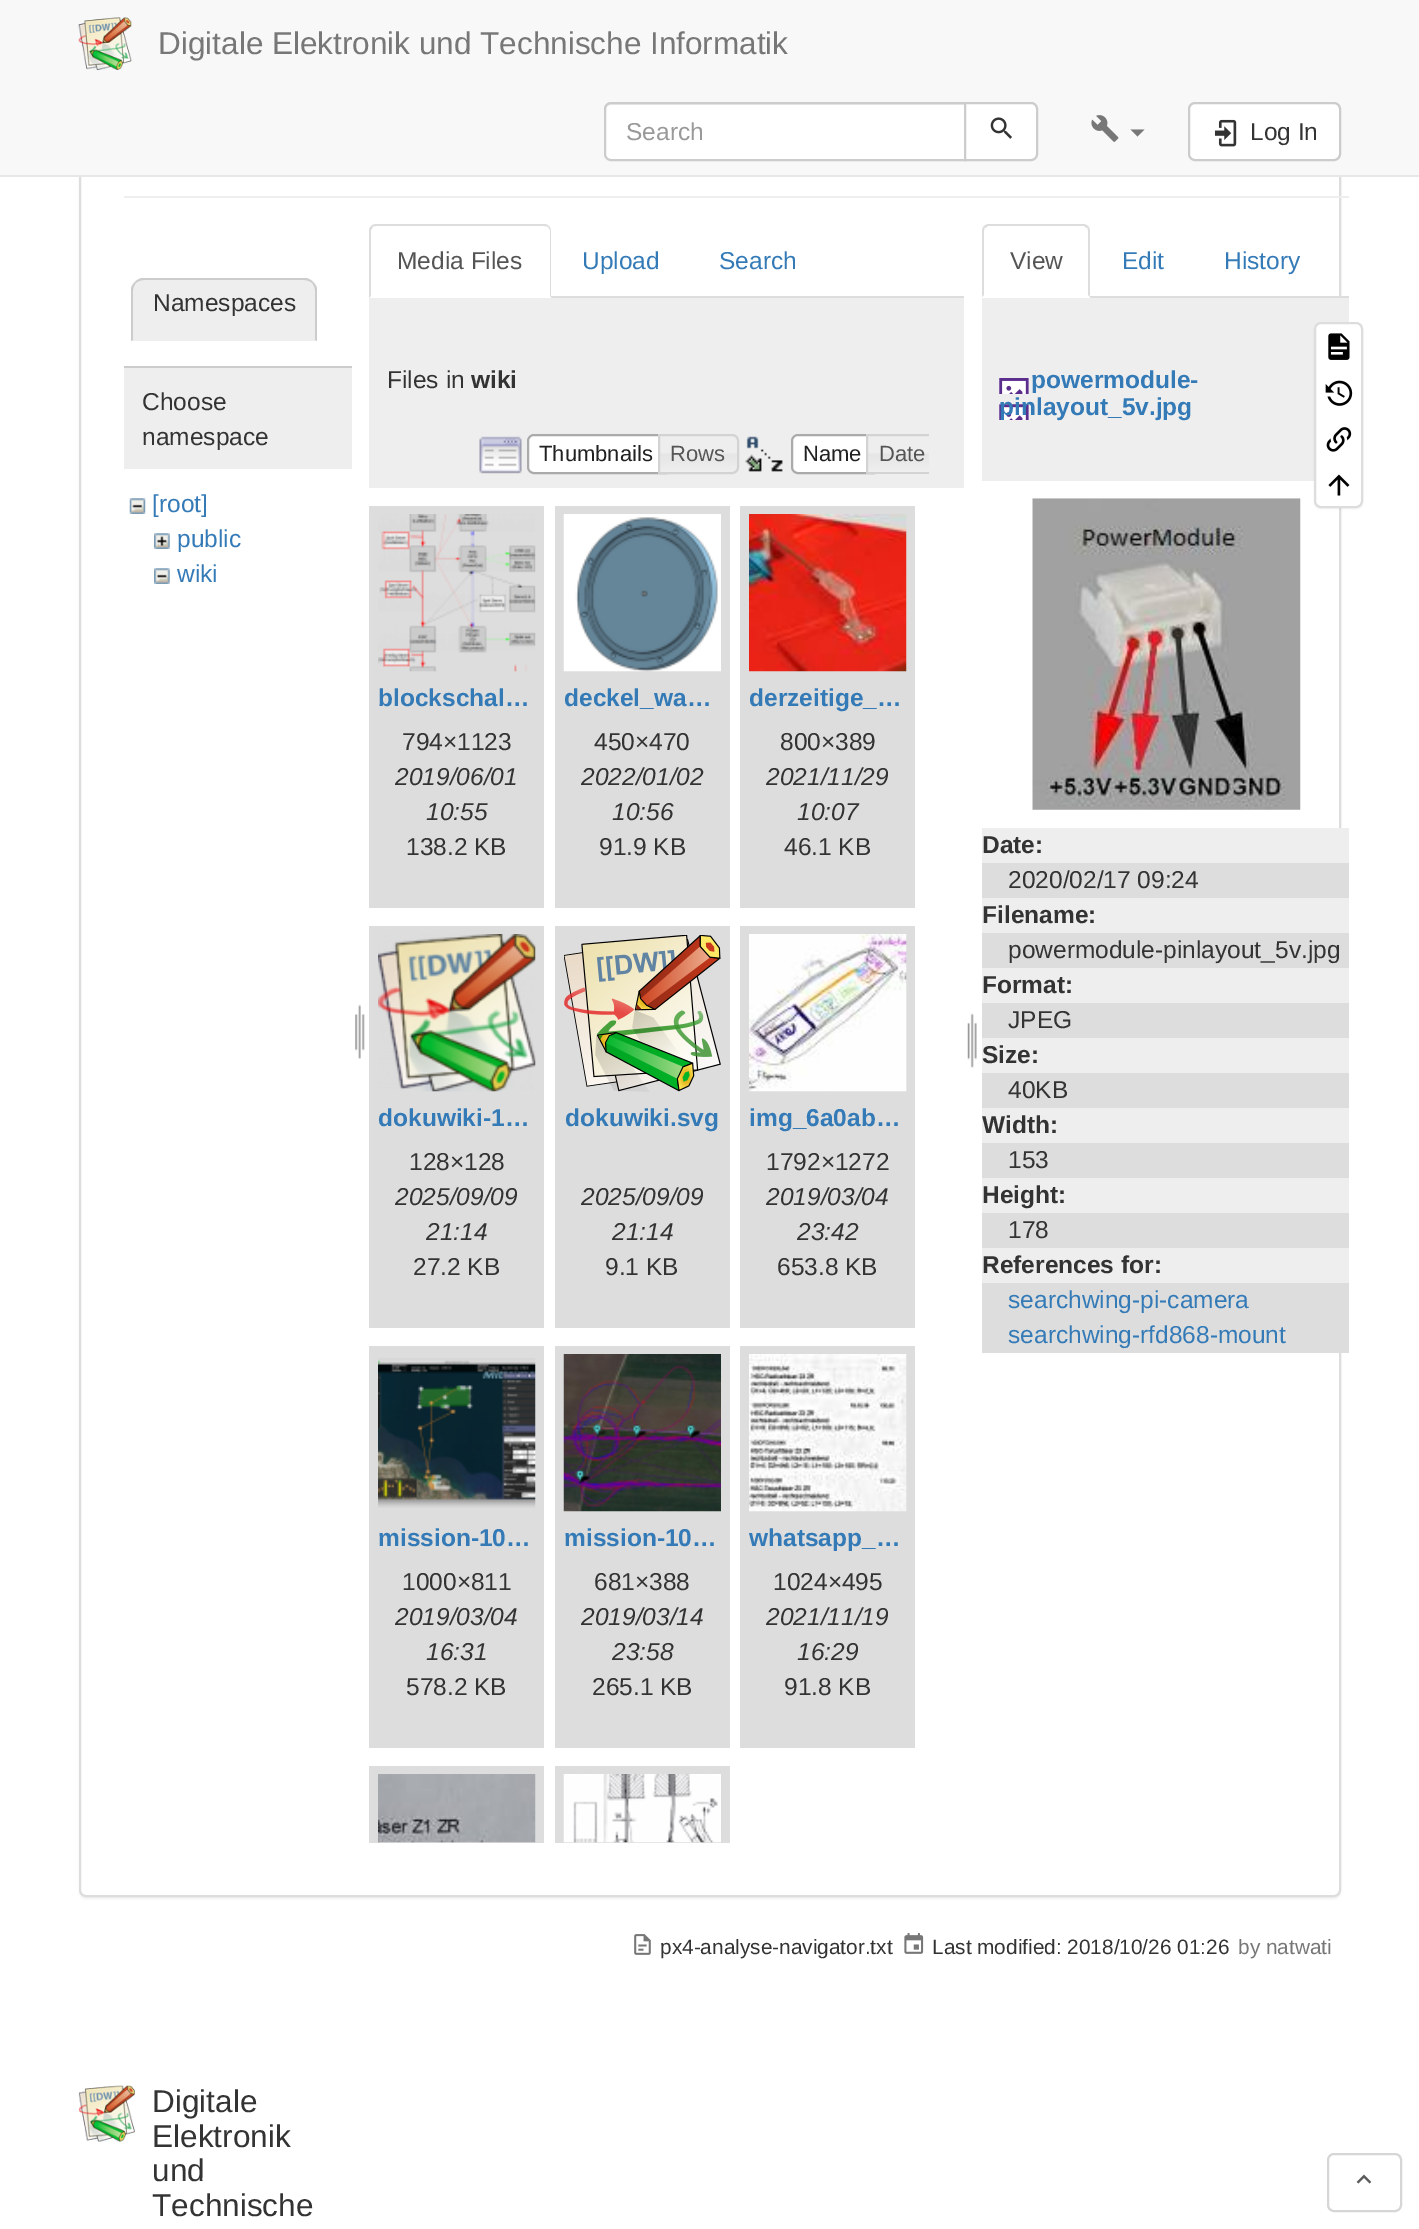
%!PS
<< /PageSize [1419 2229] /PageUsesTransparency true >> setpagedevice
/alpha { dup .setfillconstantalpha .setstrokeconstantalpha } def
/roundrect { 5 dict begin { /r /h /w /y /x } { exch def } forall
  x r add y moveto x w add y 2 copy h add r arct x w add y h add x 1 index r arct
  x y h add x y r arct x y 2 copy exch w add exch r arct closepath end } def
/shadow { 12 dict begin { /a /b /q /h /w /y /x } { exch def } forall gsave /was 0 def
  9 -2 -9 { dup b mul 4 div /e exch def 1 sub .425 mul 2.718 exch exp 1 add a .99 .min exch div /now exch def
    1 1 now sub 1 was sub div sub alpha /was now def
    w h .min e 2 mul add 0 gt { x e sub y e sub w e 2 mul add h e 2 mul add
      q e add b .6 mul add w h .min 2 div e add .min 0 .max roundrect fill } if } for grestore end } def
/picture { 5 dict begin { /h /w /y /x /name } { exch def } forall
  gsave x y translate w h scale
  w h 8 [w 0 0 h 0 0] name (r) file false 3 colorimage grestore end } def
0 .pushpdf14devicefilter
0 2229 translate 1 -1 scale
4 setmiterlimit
1 setgray
0 0 1419 2229 rectfill
0 setgray
79 2 1262 1897 7 1 0.05 shadow
1 setgray
80 1 1260 1895 6 roundrect gsave fill grestore
0.867 setgray
2 setlinewidth
stroke
0.973 setgray
0 0 1419 175 rectfill
0.906 setgray
0 175 1419 2 rectfill
(img1.rgb) 78 17 54 53 picture
/LiberationSans-Regular [31.5 0 0 -31.5 0 0] selectfont
0.467 setgray
158 54 moveto (Digitale Elektronik und Technische Informatik) show
1 setgray
newpath 611 102 moveto 966 102 lineto 966 161 lineto 611 161 lineto 607 161 604 158 604 154 curveto 604 109 lineto 604 105 607 102 611 102 curveto closepath fill
0.925 setgray
newpath 611 105 moveto 964 105 lineto 964 103 lineto 611 103 lineto 607 103 606 107 606 110 curveto 606 107 608 105 611 105 curveto closepath fill
0.8 setgray
newpath 611 103 moveto 965 103 lineto 965 160 lineto 611 160 lineto 607.5 160 605 157.5 605 154 curveto 605 109 lineto 605 105.5 607.5 103 611 103 curveto closepath stroke
/LiberationSans-Regular [24.5 0 0 -24.5 0 0] selectfont
0.6 setgray
626 140 moveto (Search) show
1 setgray
newpath 965 103 moveto 1031 103 lineto 1034.5 103 1037 105.5 1037 109 curveto 1037 154 lineto 1037 157.5 1034.5 160 1031 160 curveto 965 160 lineto closepath gsave fill grestore
0.8 setgray
stroke
(img2.rgb) 990 117 22 22 picture
(img3.rgb) 1091 115 28 27 picture
0.467 setgray
newpath 1130.5 129.5 moveto 1144.5 129.5 lineto 1137.5 136.5 lineto closepath fill
1 setgray
1189 103 151 57 6 roundrect gsave fill grestore
0.8 setgray
stroke
(img4.rgb) 1214 119 23 28 picture
0.2 setgray
1250 140 moveto (Log In) show
0.933 setgray
124 196 1225 2 rectfill
newpath 143 278 moveto 305 278 lineto 311.5 278 317 283.5 317 290 curveto 317 341 lineto 131 341 lineto 131 290 lineto 131 283.5 136.5 278 143 278 curveto closepath fill
0.8 setgray
newpath 144 280 moveto 141 280 138 281 136 283 curveto 135 282 lineto 137 280 139 279 142 278 curveto 306 278 lineto 309 279 311 280 313 282 curveto 312 283 lineto 310 281 307 280 304 280 curveto closepath fill
newpath 317 341 moveto 315 340 lineto 315 290 lineto 315 288 314 285 312 283 curveto 313 282 lineto 315 284 316 286 317 288 curveto closepath fill
0.933 setgray
newpath 316 341 moveto 132 341 lineto 133 340 lineto 315 340 lineto closepath fill
0.8 setgray
newpath 131 288 moveto 132 286 133 284 135 282 curveto 136 283 lineto 134 285 133 288 133 290 curveto 133 340 lineto 131 341 lineto closepath fill
0.2 setgray
153 311 moveto (Namespaces) show
0.933 setgray
124 368 228 101 rectfill
0.8 setgray
124 366 228 2 rectfill
0.2 setgray
142 410 moveto (Choose) show
142 445 moveto (namespace) show
(img5.rgb) 129 498 17 16 picture
0.2 0.478 0.718 setrgbcolor
152 512 moveto ([root]) show
(img6.rgb) 154 533 16 16 picture
177 547 moveto (public) show
(img7.rgb) 154 568 16 16 picture
177 582 moveto (wiki) show
(img8.rgb) 355 1004 10 55 picture
0.867 setgray
551 296 413 2 rectfill
newpath 376 224 moveto 374 224 372 225 371 226 curveto 373 227 lineto 373 226 375 226 376 226 curveto 544 226 lineto 545 226 547 226 548 227 curveto 549 226 lineto 548 225 546 224 544 224 curveto closepath fill
newpath 549 226 moveto 550 227 551 229 551 231 curveto 551 297 lineto 550 296 lineto 550 230 lineto 548 227 lineto closepath fill
newpath 369 298 moveto 369 229 lineto 371 226 lineto 373 227 lineto 371 230 lineto 371 296 lineto closepath fill
0.333 setgray
397 269 moveto (Media Files) show
0.2 0.478 0.718 setrgbcolor
582 269 moveto (Upload) show
719 269 moveto (Search) show
0.933 setgray
369 298 595 190 rectfill
0.2 setgray
387 388 moveto (Files in) show
/LiberationSans-Bold [24.5 0 0 -24.5 0 0] selectfont
471 388 moveto (wiki) show
(img9.rgb) 479 436 43 38 picture
1 setgray
newpath 534 434 moveto 667 434 lineto 667 474 lineto 534 474 lineto 530 474 527 471 527 467 curveto 527 441 lineto 527 437 530 434 534 434 curveto closepath fill
(img10.rgb) 527 434 5 36 picture
0.667 setgray
newpath 534 435 moveto 666 435 lineto 666 473 lineto 534 473 lineto 530.5 473 528 470.5 528 467 curveto 528 441 lineto 528 437.5 530.5 435 534 435 curveto closepath stroke
/LiberationSans-Regular [22 0 0 -22 0 0] selectfont
0.129 setgray
539 461 moveto (Thumbnails) show
(img11.rgb) 660 434 78 40 picture
0.827 setgray
newpath 659 435 moveto 732 435 lineto 735.5 435 738 437.5 738 441 curveto 738 467 lineto 738 470.5 735.5 473 732 473 curveto 659 473 lineto closepath stroke
0.333 setgray
670 461 moveto (Rows) show
(img12.rgb) 745 436 38 36 picture
1 setgray
newpath 798 434 moveto 875 434 lineto 875 474 lineto 798 474 lineto 794 474 791 471 791 467 curveto 791 441 lineto 791 437 794 434 798 434 curveto closepath fill
(img13.rgb) 791 434 5 5 picture
0.667 setgray
newpath 798 435 moveto 874 435 lineto 874 473 lineto 798 473 lineto 794.5 473 792 470.5 792 467 curveto 792 441 lineto 792 437.5 794.5 435 798 435 curveto closepath stroke
0.129 setgray
803 461 moveto (Name) show
(img14.rgb) 868 436 61 36 picture
gsave
466 434 463 40 rectclip
0.827 setgray
newpath 867 435 moveto 931 435 lineto 934.5 435 937 437.5 937 441 curveto 937 467 lineto 937 470.5 934.5 473 931 473 curveto 867 473 lineto closepath stroke
grestore
0.333 setgray
879 461 moveto (Date) show
0.867 setgray
369 506 175 402 rectfill
(img15.rgb) 378 514 158 158 picture
/LiberationSans-Bold [24.5 0 0 -24.5 0 0] selectfont
0.2 0.478 0.718 setrgbcolor
378 706 moveto (blockschal…) show
/LiberationSans-Regular [24.5 0 0 -24.5 0 0] selectfont
0.2 setgray
402 750 moveto (794×1123) show
/LiberationSans-Italic [24.5 0 0 -24.5 0 0] selectfont
395 785 moveto (2019/06/01) show
426 820 moveto (10:55) show
/LiberationSans-Regular [24.5 0 0 -24.5 0 0] selectfont
406 855 moveto (138.2 KB) show
0.867 setgray
555 506 175 402 rectfill
(img16.rgb) 563 514 158 158 picture
/LiberationSans-Bold [24.5 0 0 -24.5 0 0] selectfont
0.2 0.478 0.718 setrgbcolor
564 706 moveto (deckel_wa…) show
/LiberationSans-Regular [24.5 0 0 -24.5 0 0] selectfont
0.2 setgray
594 750 moveto (450×470) show
/LiberationSans-Italic [24.5 0 0 -24.5 0 0] selectfont
581 785 moveto (2022/01/02) show
612 820 moveto (10:56) show
/LiberationSans-Regular [24.5 0 0 -24.5 0 0] selectfont
599 855 moveto (91.9 KB) show
0.867 setgray
740 506 175 402 rectfill
(img17.rgb) 749 514 158 158 picture
/LiberationSans-Bold [24.5 0 0 -24.5 0 0] selectfont
0.2 0.478 0.718 setrgbcolor
749 706 moveto (derzeitige_…) show
/LiberationSans-Regular [24.5 0 0 -24.5 0 0] selectfont
0.2 setgray
780 750 moveto (800×389) show
/LiberationSans-Italic [24.5 0 0 -24.5 0 0] selectfont
766 785 moveto (2021/11/29) show
797 820 moveto (10:07) show
/LiberationSans-Regular [24.5 0 0 -24.5 0 0] selectfont
784 855 moveto (46.1 KB) show
0.867 setgray
369 926 175 402 rectfill
(img18.rgb) 378 934 158 158 picture
/LiberationSans-Bold [24.5 0 0 -24.5 0 0] selectfont
0.2 0.478 0.718 setrgbcolor
378 1126 moveto (dokuwiki-1…) show
/LiberationSans-Regular [24.5 0 0 -24.5 0 0] selectfont
0.2 setgray
409 1170 moveto (128×128) show
/LiberationSans-Italic [24.5 0 0 -24.5 0 0] selectfont
395 1205 moveto (2025/09/09) show
426 1240 moveto (21:14) show
/LiberationSans-Regular [24.5 0 0 -24.5 0 0] selectfont
413 1275 moveto (27.2 KB) show
0.867 setgray
555 926 175 402 rectfill
(img19.rgb) 564 935 157 157 picture
/LiberationSans-Bold [24.5 0 0 -24.5 0 0] selectfont
0.2 0.478 0.718 setrgbcolor
565 1126 moveto (dokuwiki.svg) show
/LiberationSans-Italic [24.5 0 0 -24.5 0 0] selectfont
0.2 setgray
581 1205 moveto (2025/09/09) show
612 1240 moveto (21:14) show
/LiberationSans-Regular [24.5 0 0 -24.5 0 0] selectfont
605 1275 moveto (9.1 KB) show
0.867 setgray
740 926 175 402 rectfill
(img20.rgb) 749 934 158 158 picture
/LiberationSans-Bold [24.5 0 0 -24.5 0 0] selectfont
0.2 0.478 0.718 setrgbcolor
749 1126 moveto (img_6a0ab…) show
/LiberationSans-Regular [24.5 0 0 -24.5 0 0] selectfont
0.2 setgray
766 1170 moveto (1792×1272) show
/LiberationSans-Italic [24.5 0 0 -24.5 0 0] selectfont
766 1205 moveto (2019/03/04) show
797 1240 moveto (23:42) show
/LiberationSans-Regular [24.5 0 0 -24.5 0 0] selectfont
777 1275 moveto (653.8 KB) show
0.867 setgray
369 1346 175 402 rectfill
(img21.rgb) 378 1358 158 150 picture
/LiberationSans-Bold [24.5 0 0 -24.5 0 0] selectfont
0.2 0.478 0.718 setrgbcolor
378 1546 moveto (mission-10…) show
/LiberationSans-Regular [24.5 0 0 -24.5 0 0] selectfont
0.2 setgray
402 1590 moveto (1000×811) show
/LiberationSans-Italic [24.5 0 0 -24.5 0 0] selectfont
395 1625 moveto (2019/03/04) show
426 1660 moveto (16:31) show
/LiberationSans-Regular [24.5 0 0 -24.5 0 0] selectfont
406 1695 moveto (578.2 KB) show
0.867 setgray
555 1346 175 402 rectfill
(img22.rgb) 563 1354 158 158 picture
/LiberationSans-Bold [24.5 0 0 -24.5 0 0] selectfont
0.2 0.478 0.718 setrgbcolor
564 1546 moveto (mission-10…) show
/LiberationSans-Regular [24.5 0 0 -24.5 0 0] selectfont
0.2 setgray
594 1590 moveto (681×388) show
/LiberationSans-Italic [24.5 0 0 -24.5 0 0] selectfont
581 1625 moveto (2019/03/14) show
612 1660 moveto (23:58) show
/LiberationSans-Regular [24.5 0 0 -24.5 0 0] selectfont
592 1695 moveto (265.1 KB) show
0.867 setgray
740 1346 175 402 rectfill
(img23.rgb) 749 1354 158 158 picture
/LiberationSans-Bold [24.5 0 0 -24.5 0 0] selectfont
0.2 0.478 0.718 setrgbcolor
749 1546 moveto (whatsapp_…) show
/LiberationSans-Regular [24.5 0 0 -24.5 0 0] selectfont
0.2 setgray
773 1590 moveto (1024×495) show
/LiberationSans-Italic [24.5 0 0 -24.5 0 0] selectfont
766 1625 moveto (2021/11/19) show
797 1660 moveto (16:29) show
/LiberationSans-Regular [24.5 0 0 -24.5 0 0] selectfont
784 1695 moveto (91.8 KB) show
0.867 setgray
369 1766 175 77 rectfill
(img24.rgb) 378 1774 158 69 picture
555 1766 175 77 rectfill
(img25.rgb) 563 1774 158 69 picture
(img26.rgb) 967 1013 10 55 picture
1090 296 259 2 rectfill
newpath 989 224 moveto 987 224 985 225 984 226 curveto 985 228 lineto 988 226 lineto 1084 226 lineto 1087 228 lineto 1088 226 lineto 1087 225 1085 224 1083 224 curveto closepath fill
newpath 1088 226 moveto 1089 227 1090 229 1090 231 curveto 1090 297 lineto 1088 295 lineto 1088 231 lineto 1088 230 1088 228 1087 228 curveto closepath fill
newpath 984 226 moveto 983 227 982 229 982 231 curveto 982 297 lineto 984 295 lineto 984 231 lineto 984 230 984 228 985 228 curveto closepath fill
0.333 setgray
1010 269 moveto (View) show
0.2 0.478 0.718 setrgbcolor
1122 269 moveto (Edit) show
1224 269 moveto (History) show
0.933 setgray
982 298 367 183 rectfill
(img27.rgb) 999 378 30 42 picture
/LiberationSans-Bold [24.5 0 0 -24.5 0 0] selectfont
0.2 0.478 0.718 setrgbcolor
1031 388 moveto (powermodule-) show
999 415 moveto (pinlayout_5v.jpg) show
(img28.rgb) 1032 498 269 312 picture
0.933 setgray
982 828 367 35 rectfill
0.2 setgray
982 853 moveto (Date:) show
0.867 setgray
982 863 367 35 rectfill
/LiberationSans-Regular [24.5 0 0 -24.5 0 0] selectfont
0.2 setgray
1008 888 moveto (2020/02/17 09:24) show
0.933 setgray
982 898 367 35 rectfill
/LiberationSans-Bold [24.5 0 0 -24.5 0 0] selectfont
0.2 setgray
982 923 moveto (Filename:) show
0.867 setgray
982 933 367 35 rectfill
/LiberationSans-Regular [24.5 0 0 -24.5 0 0] selectfont
0.2 setgray
1008 958 moveto (powermodule-pinlayout_5v.jpg) show
0.933 setgray
982 968 367 35 rectfill
/LiberationSans-Bold [24.5 0 0 -24.5 0 0] selectfont
0.2 setgray
982 993 moveto (Format:) show
0.867 setgray
982 1003 367 35 rectfill
/LiberationSans-Regular [24.5 0 0 -24.5 0 0] selectfont
0.2 setgray
1008 1028 moveto (JPEG) show
0.933 setgray
982 1038 367 35 rectfill
/LiberationSans-Bold [24.5 0 0 -24.5 0 0] selectfont
0.2 setgray
982 1063 moveto (Size:) show
0.867 setgray
982 1073 367 35 rectfill
/LiberationSans-Regular [24.5 0 0 -24.5 0 0] selectfont
0.2 setgray
1008 1098 moveto (40KB) show
0.933 setgray
982 1108 367 35 rectfill
/LiberationSans-Bold [24.5 0 0 -24.5 0 0] selectfont
0.2 setgray
982 1133 moveto (Width:) show
0.867 setgray
982 1143 367 35 rectfill
/LiberationSans-Regular [24.5 0 0 -24.5 0 0] selectfont
0.2 setgray
1008 1168 moveto (153) show
0.933 setgray
982 1178 367 35 rectfill
/LiberationSans-Bold [24.5 0 0 -24.5 0 0] selectfont
0.2 setgray
982 1203 moveto (Height:) show
0.867 setgray
982 1213 367 35 rectfill
/LiberationSans-Regular [24.5 0 0 -24.5 0 0] selectfont
0.2 setgray
1008 1238 moveto (178) show
0.933 setgray
982 1248 367 35 rectfill
/LiberationSans-Bold [24.5 0 0 -24.5 0 0] selectfont
0.2 setgray
982 1273 moveto (References for:) show
0.867 setgray
982 1283 367 70 rectfill
/LiberationSans-Regular [24.5 0 0 -24.5 0 0] selectfont
0.2 0.478 0.718 setrgbcolor
1008 1308 moveto (searchwing-pi-camera) show
1008 1343 moveto (searchwing-rfd868-mount) show
0 setgray
1314 324 49 185 7 1 0.05 shadow
1 setgray
1315 323 47 184 6 roundrect gsave fill grestore
0.867 setgray
stroke
(img29.rgb) 1328 333 22 27 picture
(img30.rgb) 1325 380 28 26 picture
(img31.rgb) 1326 427 26 25 picture
(img32.rgb) 1328 474 22 22 picture
(img33.rgb) 634 1934 17 21 picture
/LiberationSans-Regular [20.8 0 0 -20.8 0 0] selectfont
0.2 setgray
660 1954 moveto (px4-analyse-navigator.txt) show
(img34.rgb) 904 1933 20 21 picture
932 1954 moveto (Last modified: 2018/10/26 01:26) show
0.467 setgray
1238 1954 moveto (by natwati) show
(img35.rgb) 78 2085 57 57 picture
/LiberationSans-Regular [31.5 0 0 -31.5 0 0] selectfont
0.2 setgray
152 2112 moveto (Digitale) show
152 2147 moveto (Elektronik) show
152 2181 moveto (und) show
152 2216 moveto (Technische) show
0.839 setgray
1328 2154 73 57 6 roundrect stroke
(img36.rgb) 1356 2174 16 10 picture
.poppdf14devicefilter showpage
